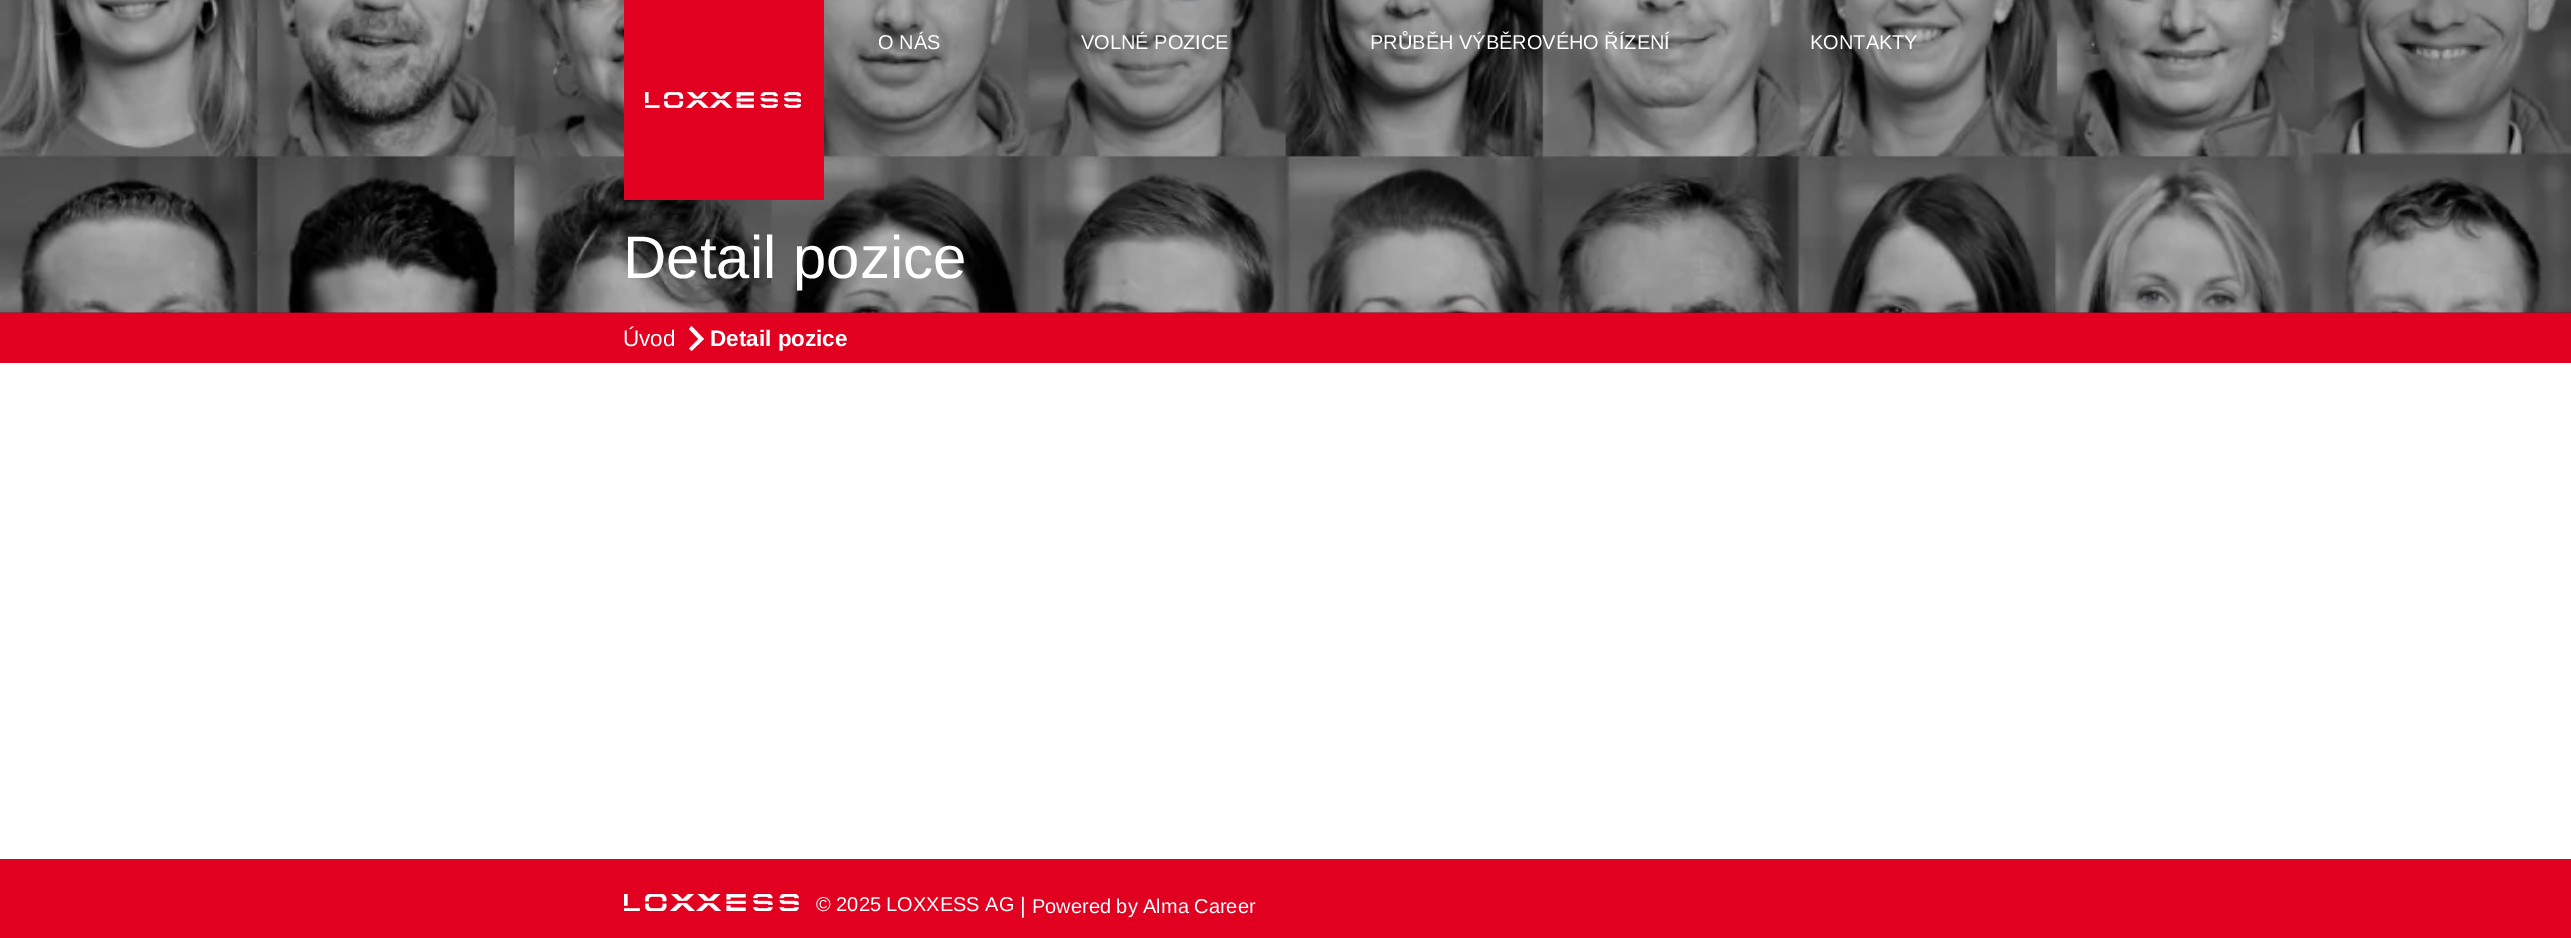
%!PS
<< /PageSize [2571 938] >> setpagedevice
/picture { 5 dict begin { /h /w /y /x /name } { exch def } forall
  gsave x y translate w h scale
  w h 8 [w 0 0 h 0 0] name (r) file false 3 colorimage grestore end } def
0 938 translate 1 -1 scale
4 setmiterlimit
1 setgray
0 0 2571 938 rectfill
0.62 0 0.086 setrgbcolor
0 312 2571 1 rectfill
(img2.rgb) 0 0 2571 313 picture
0.886 0 0.125 setrgbcolor
624 0 200 200 rectfill
(img1.rgb) 645 92 156 16 picture
/LiberationSans-Regular [20 0 0 -20 0 0] selectfont
1 setgray
878 49 moveto (O NÁS) show
1081 49 moveto (VOLNÉ POZICE) show
1370 49 moveto (PRŮBĚH VÝBĚROVÉHO ŘÍZENÍ) show
1810 49 moveto (KONTAKTY) show
/LiberationSans-Regular [60 0 0 -60 0 0] selectfont
623 278 moveto (Detail pozice) show
0.886 0 0.125 setrgbcolor
0 313 2571 50 rectfill
/LiberationSans-Regular [22.5 0 0 -22.5 0 0] selectfont
1 setgray
623 346 moveto (Úvod) show
newpath 691.5 326 moveto 689 329 lineto 698.5 339 lineto 689 348.5 lineto 691.5 351 lineto 704 339 lineto closepath fill
/LiberationSans-Bold [22.5 0 0 -22.5 0 0] selectfont
710 346 moveto (Detail pozice) show
0.886 0 0.125 setrgbcolor
0 859 2571 79 rectfill
(img3.rgb) 624 894 175 17 picture
/LiberationSans-Regular [20 0 0 -20 0 0] selectfont
1 setgray
816 911 moveto (© 2025 LOXXESS AG) show
/LiberationSans-Regular [22.5 0 0 -22.5 0 0] selectfont
1020 913 moveto (|) show
/LiberationSans-Regular [20 0 0 -20 0 0] selectfont
1032 913 moveto (Powered by Alma Career) show
showpage
